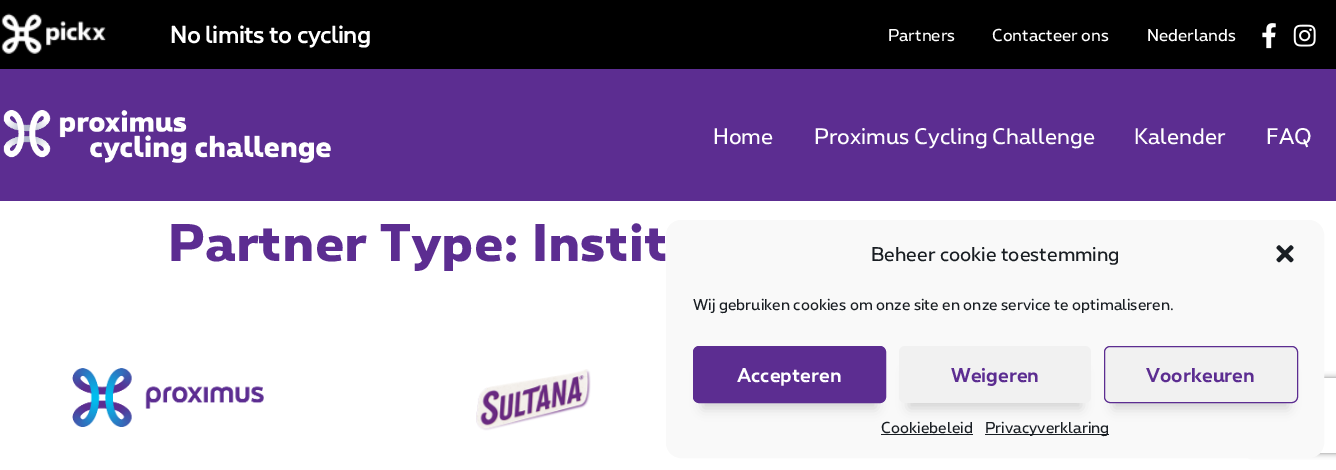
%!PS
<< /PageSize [1336 470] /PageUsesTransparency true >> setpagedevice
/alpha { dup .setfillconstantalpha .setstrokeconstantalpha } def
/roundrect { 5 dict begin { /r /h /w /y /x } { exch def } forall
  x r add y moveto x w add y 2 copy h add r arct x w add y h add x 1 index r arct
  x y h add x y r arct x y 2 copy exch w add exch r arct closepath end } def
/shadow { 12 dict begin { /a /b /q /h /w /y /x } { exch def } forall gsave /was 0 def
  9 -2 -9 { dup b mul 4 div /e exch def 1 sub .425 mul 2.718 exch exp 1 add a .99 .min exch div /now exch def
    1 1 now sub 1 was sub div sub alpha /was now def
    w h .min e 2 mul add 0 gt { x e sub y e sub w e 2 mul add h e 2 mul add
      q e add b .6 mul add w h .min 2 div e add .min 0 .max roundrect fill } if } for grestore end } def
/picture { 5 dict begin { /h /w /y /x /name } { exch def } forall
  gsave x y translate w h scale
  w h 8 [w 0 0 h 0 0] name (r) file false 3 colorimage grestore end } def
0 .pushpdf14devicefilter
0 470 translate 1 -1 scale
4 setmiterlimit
1 setgray
0 0 1336 470 rectfill
0 setgray
0 0 1336 69 rectfill
(img1.rgb) 1 13 105 41 picture
/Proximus-Bold [22.5 0 0 -22.5 0 0] selectfont
1 setgray
170 43 moveto (No limits to cycling) show
/Proximus-Regular [16.25 0 0 -16.25 0 0] selectfont
888 41 moveto (Partners) show
992 41 moveto (Contacteer ons) show
1147 41 moveto (Nederlands) show
(img2.rgb) 1262 23 14 26 picture
(img3.rgb) 1293 24 23 23 picture
0.361 0.176 0.569 setrgbcolor
0 69 1336 132 rectfill
(img4.rgb) 3 110 328 53 picture
/Proximus-Regular [21.25 0 0 -21.25 0 0] selectfont
1 setgray
713 144 moveto (Home) show
814 144 moveto (Proximus Cycling Challenge) show
1134 144 moveto (Kalender) show
1266 144 moveto (FAQ) show
/Proximus-ExtraBold [50 0 0 -50 0 0] selectfont
0.361 0.176 0.569 setrgbcolor
168 261 moveto (Partner Type: Instit) show
gsave
newpath 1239 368 moveto 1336 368 lineto 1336 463 lineto 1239 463 lineto closepath 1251.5 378 moveto 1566.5 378 lineto 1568 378 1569 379 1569 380.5 curveto 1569 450.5 lineto 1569 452 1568 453 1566.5 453 curveto 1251.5 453 lineto 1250 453 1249 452 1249 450.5 curveto 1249 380.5 lineto 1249 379 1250 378 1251.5 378 curveto closepath eoclip newpath
0.502 setgray
1249 378 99 75 2.5 3 1 shadow
grestore
0.976 setgray
666.5 220.5 657 237 14.5 roundrect gsave fill grestore
stroke
/Proximus-Regular [18.75 0 0 -18.75 0 0] selectfont
0.098 0.118 0.137 setrgbcolor
871 261 moveto (Beheer cookie toestemming) show
(img5.rgb) 1276 245 18 18 picture
/Proximus-Regular [15 0 0 -15 0 0] selectfont
693 310 moveto (Wij gebruiken cookies om onze site en onze service te optimaliseren.) show
0 setgray
703 371 173 37 0 6 0.16 shadow
0.361 0.176 0.569 setrgbcolor
693.5 346.5 192 56 5.5 roundrect gsave fill grestore
stroke
/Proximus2-Bold [18.75 0 0 -18.75 0 0] selectfont
1 setgray
737 382 moveto (Accepteren) show
0 setgray
909 371 172 37 0 6 0.16 shadow
0.945 setgray
899 346 192 57 6 roundrect fill
0.361 0.176 0.569 setrgbcolor
951 382 moveto (Weigeren) show
0 setgray
1114 371 174 37 0 6 0.16 shadow
0.945 setgray
1104.5 346.5 193 56 5.5 roundrect gsave fill grestore
0.361 0.176 0.569 setrgbcolor
stroke
1146 382 moveto (Voorkeuren) show
/Proximus-Regular [15 0 0 -15 0 0] selectfont
0.098 0.118 0.137 setrgbcolor
881 433 moveto (Cookiebeleid) show
881 434 92 1 rectfill
985 434 124 1 rectfill
985 433 moveto (Privacyverklaring) show
(img6.rgb) 72 368 192 59 picture
(img7.rgb) 476 369 115 62 picture
.poppdf14devicefilter showpage
